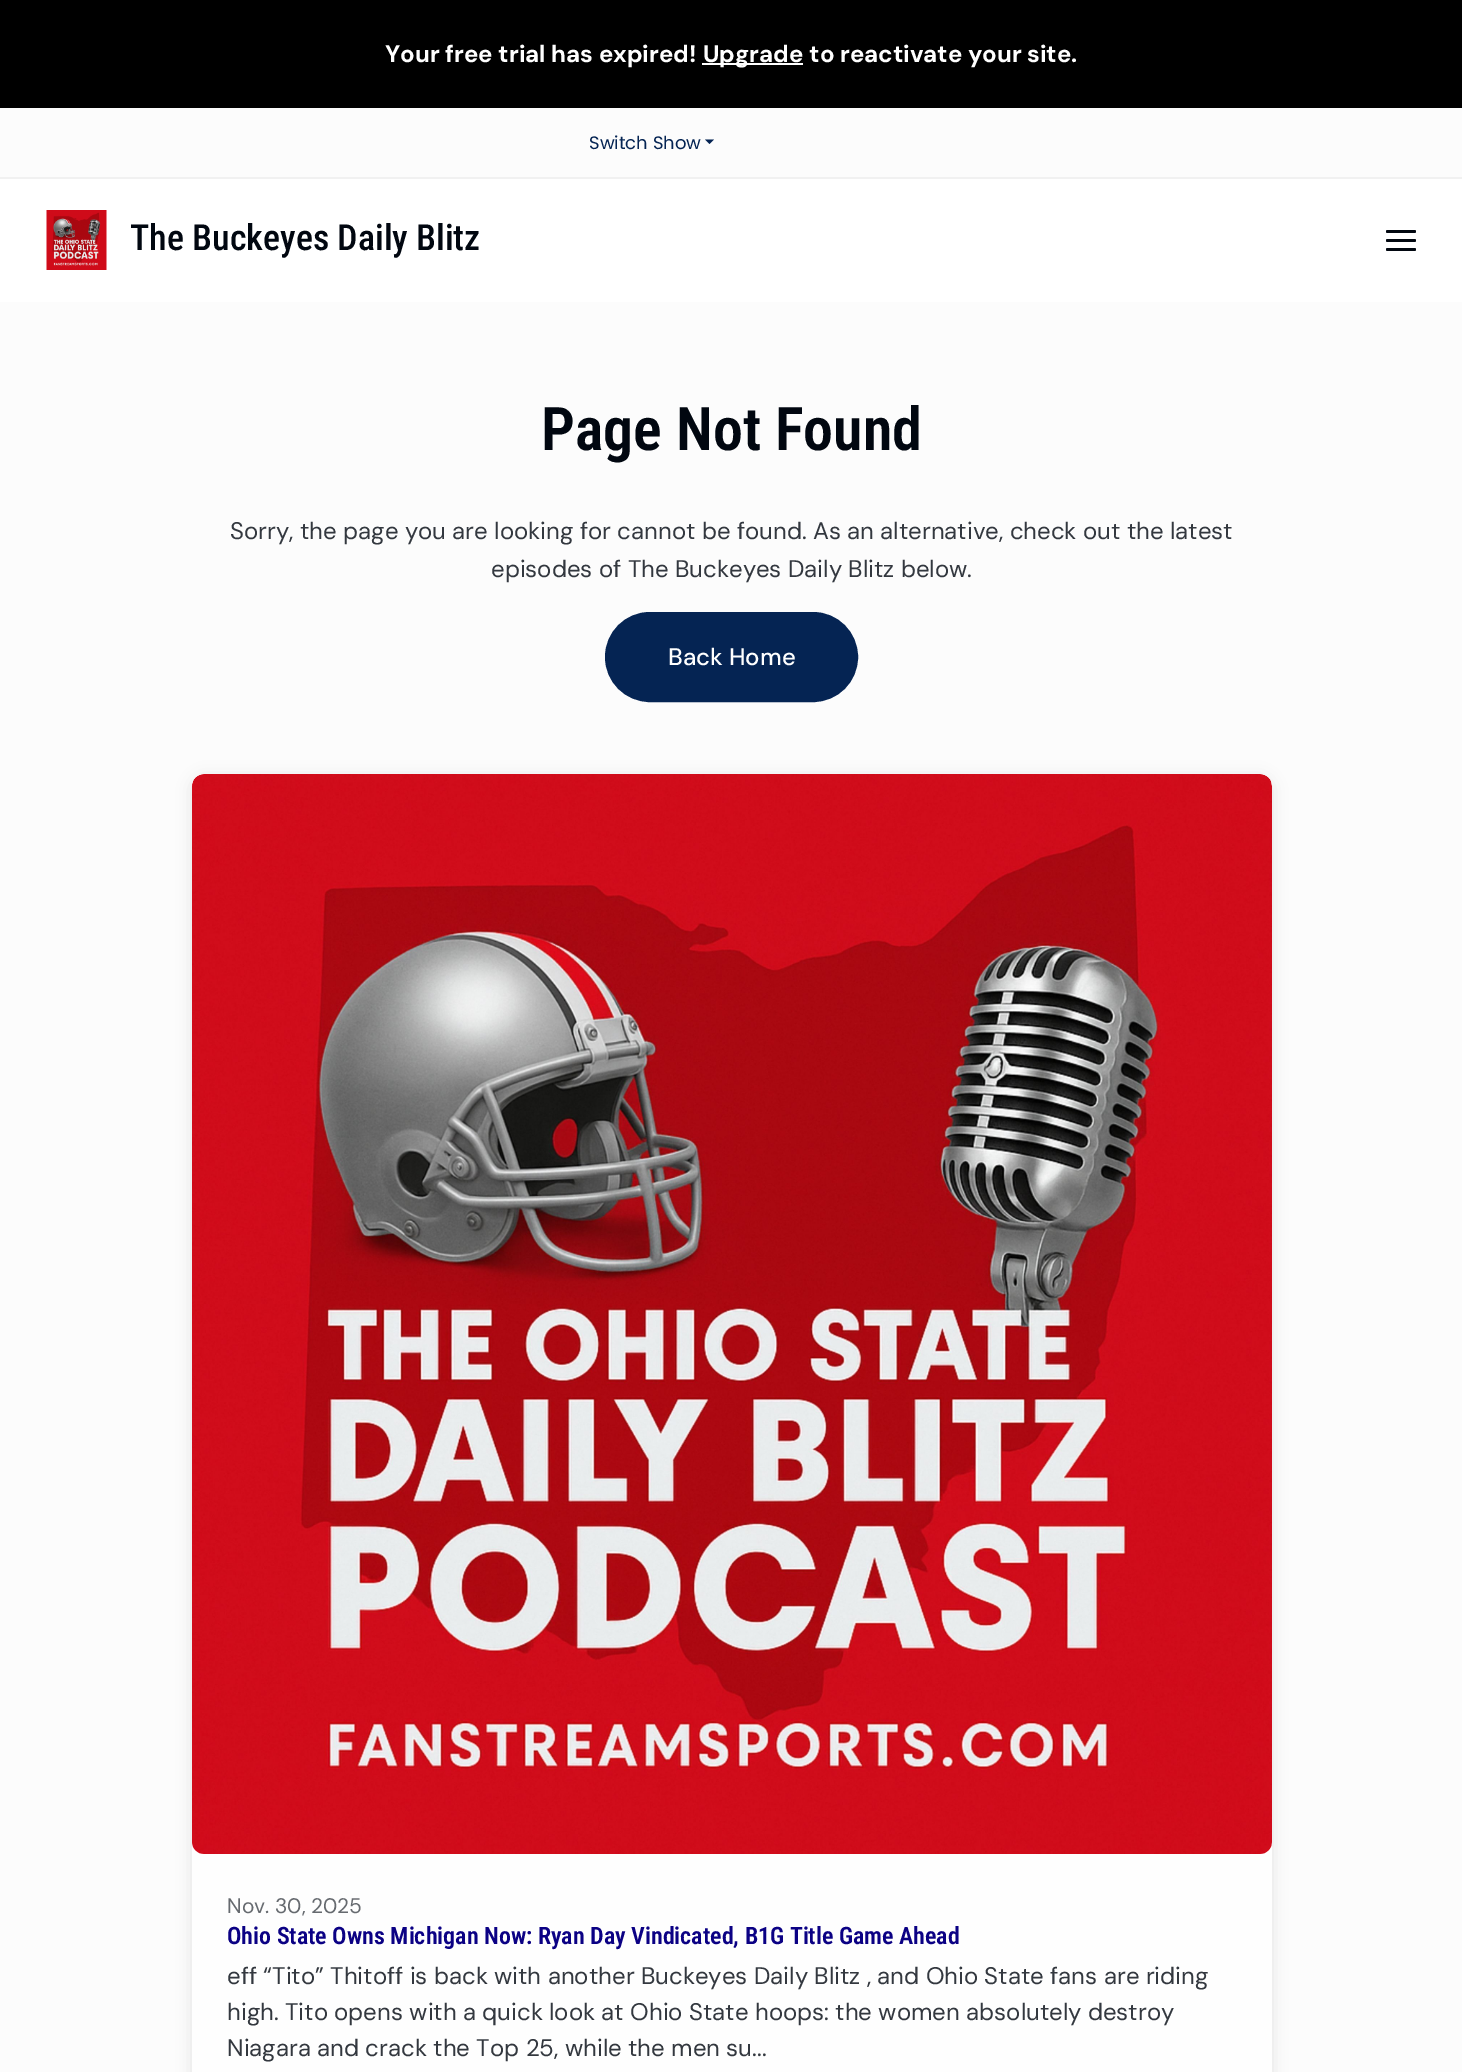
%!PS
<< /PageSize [1462 2072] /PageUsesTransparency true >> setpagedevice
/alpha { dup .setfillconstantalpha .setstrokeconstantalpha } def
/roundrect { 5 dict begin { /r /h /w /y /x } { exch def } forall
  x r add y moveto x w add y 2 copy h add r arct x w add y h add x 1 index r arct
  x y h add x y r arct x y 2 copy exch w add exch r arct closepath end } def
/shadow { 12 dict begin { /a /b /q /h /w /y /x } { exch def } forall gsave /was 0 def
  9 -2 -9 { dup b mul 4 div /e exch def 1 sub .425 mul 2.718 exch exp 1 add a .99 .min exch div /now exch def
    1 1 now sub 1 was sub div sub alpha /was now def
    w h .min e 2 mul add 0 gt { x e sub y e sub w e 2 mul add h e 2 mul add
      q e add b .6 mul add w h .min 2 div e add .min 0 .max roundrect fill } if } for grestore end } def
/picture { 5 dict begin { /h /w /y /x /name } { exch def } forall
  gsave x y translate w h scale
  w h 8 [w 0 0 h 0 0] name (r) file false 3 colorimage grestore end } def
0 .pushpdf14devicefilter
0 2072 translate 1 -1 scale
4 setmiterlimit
0.988 setgray
0 0 1462 2072 rectfill
0 setgray
0 0 1462 108 rectfill
/DMSans-Bold [24 0 0 -24 0 0] selectfont
1 setgray
385 62 moveto (Your free trial has expired!) show
702 63 101 2 rectfill
703 62 moveto (Upgrade to reactivate your site.) show
0.945 setgray
0 177 1462 2 rectfill
/Poppins-Regular [18 0 0 -18 0 0] selectfont
0.02 0.141 0.325 setrgbcolor
589 149 moveto (Switch Show) show
newpath 705 139.5 moveto 714 139.5 lineto 709.5 144 lineto closepath fill
1 setgray
0 179 1462 123 rectfill
(img1.rgb) 46 210 61 60 picture
/RobotoCondensed-Medium [36 0 0 -36 0 0] selectfont
0.004 0.027 0.063 setrgbcolor
130 250 moveto (The Buckeyes Daily Blitz) show
1386 230 30 3 1.5 roundrect fill
1386 239 30 3 1.5 roundrect fill
1386 248 30 3 1.5 roundrect fill
/RobotoCondensed-SemiBold [60 0 0 -60 0 0] selectfont
541 450 moveto (Page Not Found) show
/DMSans-Regular [24 0 0 -24 0 0] selectfont
0.2 0.22 0.247 setrgbcolor
230 539 moveto (Sorry, the page you are looking for cannot be found. As an alternative, check out the latest) show
491 577 moveto (episodes of The Buckeyes Daily Blitz below.) show
0.02 0.141 0.325 setrgbcolor
606.5 613.5 250 87 43.5 roundrect gsave fill grestore
3 setlinewidth
stroke
/DMSans-Medium [24 0 0 -24 0 0] selectfont
1 setgray
668 665 moveto (Back Home) show
0 setgray
192 777 1080 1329 12 7.5 0.1 shadow
0.996 setgray
192 774 1080 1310 12 roundrect fill
(img2.rgb) 192 774 1080 1080 picture
/DMSans-Regular [21 0 0 -21 0 0] selectfont
0.4 0.416 0.435 setrgbcolor
227 1913 moveto (Nov. 30, 2025) show
/RobotoCondensed-SemiBold [24 0 0 -24 0 0] selectfont
0.043 0.004 0.518 setrgbcolor
227 1944 moveto (Ohio State Owns Michigan Now: Ryan Day Vindicated, B1G Title Game Ahead) show
/DMSans-Regular [24 0 0 -24 0 0] selectfont
0.2 0.22 0.247 setrgbcolor
227 1984 moveto (eff “Tito” Thitoff is back with another Buckeyes Daily Blitz , and Ohio State fans are riding) show
227 2020 moveto (high. Tito opens with a quick look at Ohio State hoops: the women absolutely destroy) show
227 2056 moveto (Niagara and crack the Top 25, while the men su...) show
.poppdf14devicefilter showpage
